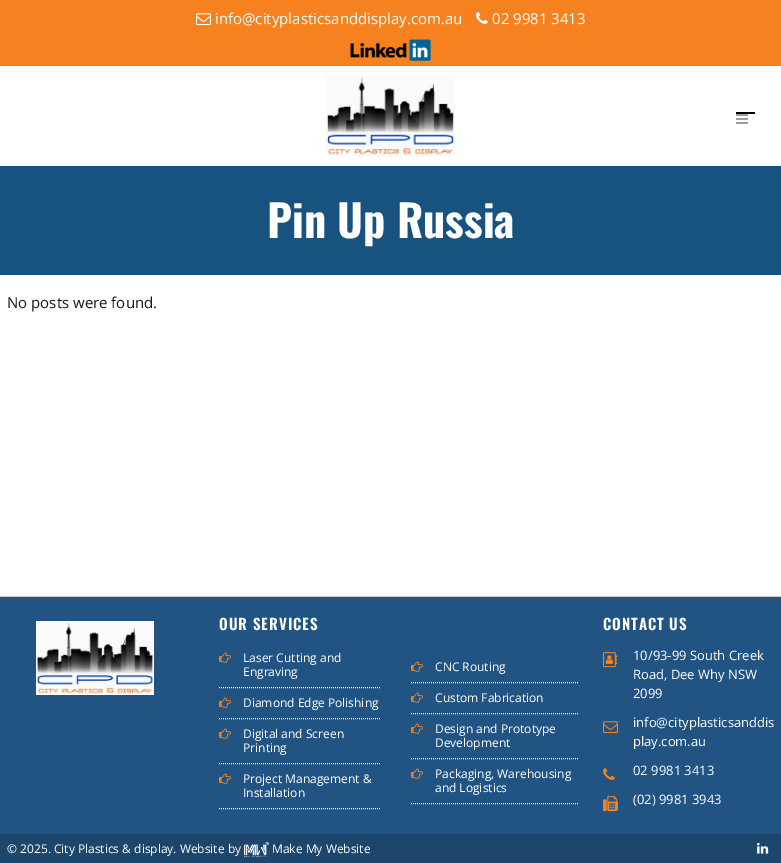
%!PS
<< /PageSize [781 863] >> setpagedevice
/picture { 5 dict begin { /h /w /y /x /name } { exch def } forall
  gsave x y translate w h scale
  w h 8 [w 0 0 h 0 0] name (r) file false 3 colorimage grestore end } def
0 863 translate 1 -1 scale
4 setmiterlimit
1 setgray
0 0 781 863 rectfill
0.961 0.51 0.122 setrgbcolor
0 0 781 66 rectfill
(img1.rgb) 196 13 15 13 picture
/OpenSans-Regular [15 0 0 -15 0 0] selectfont
1 setgray
215 24 moveto (info@cityplasticsanddisplay.com.au) show
(img2.rgb) 476 12 12 12 picture
492 24 moveto (02 9981 3413) show
(img3.rgb) 350 39 81 22 picture
(img4.rgb) 326 76 129 80 picture
0 setgray
736 112 19 2 rectfill
(img5.rgb) 736 114 12 10 picture
0.094 0.325 0.502 setrgbcolor
0 166 781 109 rectfill
/Oswald-Bold [44 0 0 -44 0 0] selectfont
1 setgray
267 238 moveto (Pin Up Russia) show
/OpenSans-Regular [15 0 0 -15 0 0] selectfont
0.086 setgray
7 308 moveto (No posts were found.) show
0.129 0.329 0.514 setrgbcolor
0 597 781 237 rectfill
0.808 setgray
0 596 781 1 rectfill
(img6.rgb) 36 621 118 74 picture
/Oswald-SemiBold [15 0 0 -15 0 0] selectfont
1 setgray
219 630 moveto 1 0 (OUR SERVICES) ashow
[1 1] 0 setdash
newpath 219 687.5 moveto 381 687.5 lineto stroke
(img7.rgb) 219 652 12 11 picture
/OpenSans-Regular [12 0 0 -12 0 0] selectfont
243 662 moveto (Laser Cutting and) show
243 676 moveto (Engraving) show
newpath 219 718.5 moveto 381 718.5 lineto stroke
(img7.rgb) 219 697 12 11 picture
243 707 moveto (Diamond Edge Polishing) show
newpath 219 763.5 moveto 381 763.5 lineto stroke
(img7.rgb) 219 728 12 11 picture
243 738 moveto (Digital and Screen) show
243 752 moveto (Printing) show
newpath 219 808.5 moveto 381 808.5 lineto stroke
(img7.rgb) 219 773 12 11 picture
243 783 moveto (Project Management &) show
243 797 moveto (Installation) show
newpath 411 682.5 moveto 578 682.5 lineto stroke
(img7.rgb) 411 661 12 11 picture
435 671 moveto (CNC Routing) show
newpath 411 713.5 moveto 578 713.5 lineto stroke
(img7.rgb) 411 692 12 11 picture
435 702 moveto (Custom Fabrication) show
newpath 411 758.5 moveto 578 758.5 lineto stroke
(img7.rgb) 411 723 12 11 picture
435 733 moveto (Design and Prototype) show
435 747 moveto (Development) show
newpath 411 803.5 moveto 578 803.5 lineto stroke
(img7.rgb) 411 768 12 11 picture
435 778 moveto (Packaging, Warehousing) show
435 792 moveto (and Logistics) show
/Oswald-SemiBold [15 0 0 -15 0 0] selectfont
603 630 moveto 1 0 (CONTACT US) ashow
(img8.rgb) 603 652 14 16 picture
/OpenSans-Regular [13 0 0 -13 0 0] selectfont
633 660 moveto (10/93-99 South Creek) show
633 679 moveto (Road, Dee Why NSW) show
633 698 moveto (2099) show
(img9.rgb) 603 721 15 13 picture
633 727 moveto (info@cityplasticsanddis) show
633 746 moveto (play.com.au) show
(img10.rgb) 603 768 12 12 picture
633 775 moveto (02 9981 3413) show
(img11.rgb) 603 796 15 16 picture
633 804 moveto (\(02\) 9981 3943) show
0.11 0.275 0.424 setrgbcolor
0 834 781 29 rectfill
/OpenSans-Regular [12 0 0 -12 0 0] selectfont
1 setgray
7 853 moveto (© 2025. City Plastics & display. Website by) show
(img12.rgb) 244 842 25 15 picture
272 853 moveto (Make My Website) show
(img13.rgb) 757 842 12 12 picture
showpage
